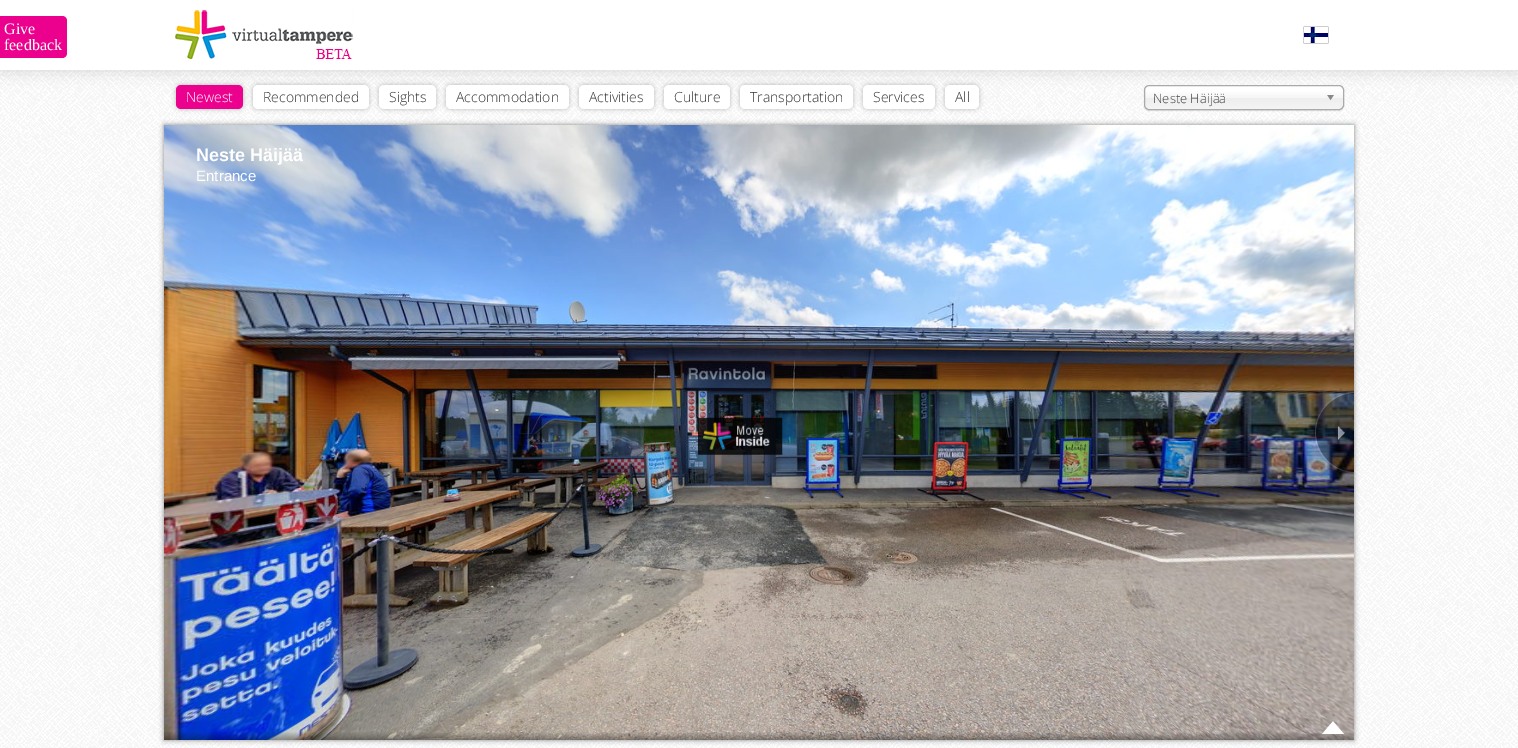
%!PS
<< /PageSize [1518 748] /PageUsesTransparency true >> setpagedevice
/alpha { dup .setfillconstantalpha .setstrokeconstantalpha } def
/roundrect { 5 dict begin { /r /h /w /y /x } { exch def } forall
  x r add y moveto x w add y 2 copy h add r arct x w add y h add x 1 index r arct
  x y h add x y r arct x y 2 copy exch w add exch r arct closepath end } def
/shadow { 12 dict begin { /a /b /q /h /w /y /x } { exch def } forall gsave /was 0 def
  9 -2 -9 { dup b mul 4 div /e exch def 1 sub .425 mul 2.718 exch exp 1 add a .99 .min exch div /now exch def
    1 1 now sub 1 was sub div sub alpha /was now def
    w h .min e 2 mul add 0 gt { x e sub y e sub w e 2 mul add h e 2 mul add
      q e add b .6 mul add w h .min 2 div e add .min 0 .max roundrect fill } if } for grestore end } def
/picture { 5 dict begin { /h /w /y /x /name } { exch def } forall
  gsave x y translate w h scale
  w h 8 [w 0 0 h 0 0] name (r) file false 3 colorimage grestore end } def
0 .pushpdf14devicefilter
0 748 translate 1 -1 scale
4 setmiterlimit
1 setgray
0 0 1518 748 rectfill
(img1.rgb) 0 70 1518 678 picture
0 setgray
0 0 1518 70 0 8.5 0.15 shadow
1 setgray
0 0 1518 70 rectfill
(img2.rgb) 175 10 178 50 picture
(img3.rgb) 1303 26 26 18 picture
0.925 0 0.557 setrgbcolor
newpath -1 16 moveto 62 16 lineto 65 16 67 18 67 21 curveto 67 53 lineto 67 56 65 58 62 58 curveto -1 58 lineto closepath fill
/LiberationSerif-Regular [16 0 0 -16 0 0] selectfont
1 setgray
4 34 moveto (Give) show
4 50 moveto (feedback) show
0 setgray
176 85 67 24 5 2.5 0.25 shadow
0.925 0 0.557 setrgbcolor
176 85 67 24 5 roundrect fill
/OpenSans-Light [14 0 0 -14 0 0] selectfont
1 setgray
186 102 moveto (Newest) show
0 setgray
253 85 116 24 5 2.5 0.25 shadow
1 setgray
253 85 116 24 5 roundrect fill
0.2 setgray
263 102 moveto (Recommended) show
0 setgray
379 85 57 24 5 2.5 0.25 shadow
1 setgray
379 85 57 24 5 roundrect fill
0.2 setgray
389 102 moveto (Sights) show
0 setgray
446 85 123 24 5 2.5 0.25 shadow
1 setgray
446 85 123 24 5 roundrect fill
0.2 setgray
456 102 moveto (Accommodation) show
0 setgray
579 85 75 24 5 2.5 0.25 shadow
1 setgray
579 85 75 24 5 roundrect fill
0.2 setgray
589 102 moveto (Activities) show
0 setgray
664 85 66 24 5 2.5 0.25 shadow
1 setgray
664 85 66 24 5 roundrect fill
0.2 setgray
674 102 moveto (Culture) show
0 setgray
740 85 113 24 5 2.5 0.25 shadow
1 setgray
740 85 113 24 5 roundrect fill
0.2 setgray
750 102 moveto (Transportation) show
0 setgray
863 85 72 24 5 2.5 0.25 shadow
1 setgray
863 85 72 24 5 roundrect fill
0.2 setgray
873 102 moveto (Services) show
0 setgray
945 85 34 24 5 2.5 0.25 shadow
1 setgray
945 85 34 24 5 roundrect fill
0.2 setgray
955 102 moveto (All) show
0 setgray
1144 86 200 25 5 0.5 0.1 shadow
gsave 1145 86 198 23 4 roundrect clip newpath
<< /ShadingType 2 /ColorSpace /DeviceRGB /Coords [1244 86 1244 109] /Extend [true true] /Function << /FunctionType 3 /Domain [0 1] /Functions [<< /FunctionType 2 /Domain [0 1] /C0 [1 1 1] /C1 [1 1 1] /N 1 >> << /FunctionType 2 /Domain [0 1] /C0 [1 1 1] /C1 [0.965 0.965 0.965] /N 1 >> << /FunctionType 2 /Domain [0 1] /C0 [0.965 0.965 0.965] /C1 [0.933 0.933 0.933] /N 1 >> << /FunctionType 2 /Domain [0 1] /C0 [0.933 0.933 0.933] /C1 [0.957 0.957 0.957] /N 1 >>] /Bounds [0.2 0.5 0.52] /Encode [0 1 0 1 0 1 0 1] >> >> shfill grestore
0.667 setgray
1144.5 85.5 199 24 4.5 roundrect stroke
/OpenSans-Light [13 0 0 -13 0 0] selectfont
0.267 setgray
1153 103 moveto (Neste Häijää) show
(img4.rgb) 1327 95 7 6 picture
0 setgray
164 125 1190 615 0 2.5 0.45 shadow
(img5.rgb) 164 125 1190 615 picture
/LiberationSans-Bold [18 0 0 -18 0 0] selectfont
1 setgray
196 161 moveto (Neste Häijää) show
/LiberationSans-Regular [15 0 0 -15 0 0] selectfont
196 181 moveto (Entrance) show
(img6.rgb) 1315 392 39 81 picture
(img8.rgb) 164 732 1190 8 picture
(img7.rgb) 1322 721 22 13 picture
.poppdf14devicefilter showpage
